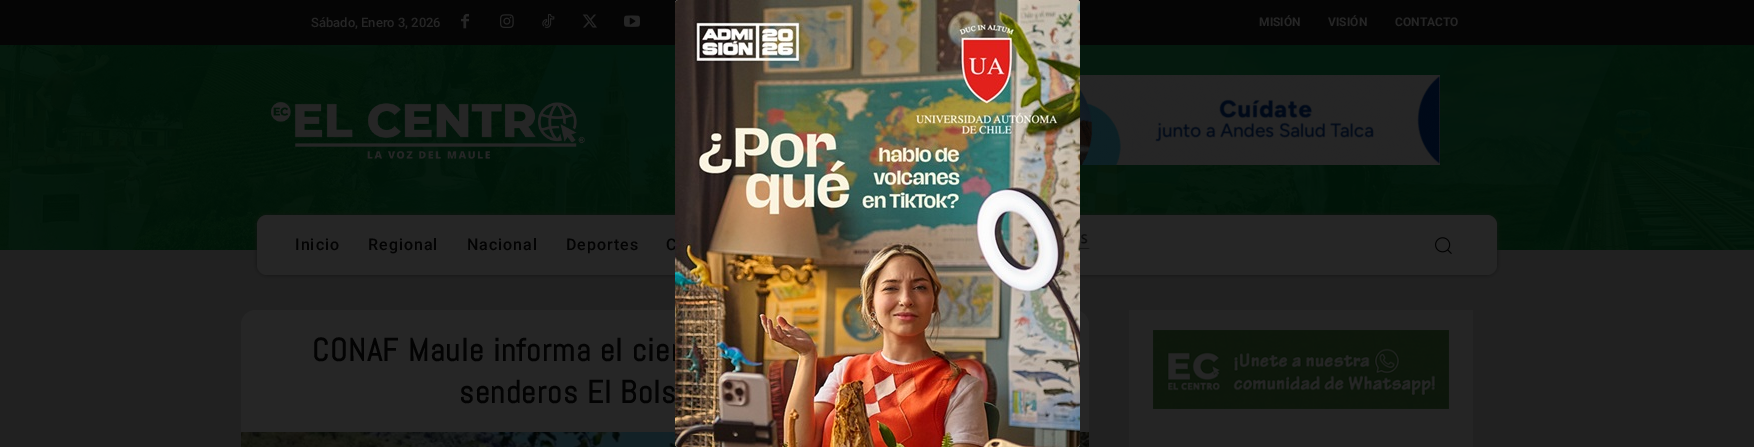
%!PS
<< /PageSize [1754 447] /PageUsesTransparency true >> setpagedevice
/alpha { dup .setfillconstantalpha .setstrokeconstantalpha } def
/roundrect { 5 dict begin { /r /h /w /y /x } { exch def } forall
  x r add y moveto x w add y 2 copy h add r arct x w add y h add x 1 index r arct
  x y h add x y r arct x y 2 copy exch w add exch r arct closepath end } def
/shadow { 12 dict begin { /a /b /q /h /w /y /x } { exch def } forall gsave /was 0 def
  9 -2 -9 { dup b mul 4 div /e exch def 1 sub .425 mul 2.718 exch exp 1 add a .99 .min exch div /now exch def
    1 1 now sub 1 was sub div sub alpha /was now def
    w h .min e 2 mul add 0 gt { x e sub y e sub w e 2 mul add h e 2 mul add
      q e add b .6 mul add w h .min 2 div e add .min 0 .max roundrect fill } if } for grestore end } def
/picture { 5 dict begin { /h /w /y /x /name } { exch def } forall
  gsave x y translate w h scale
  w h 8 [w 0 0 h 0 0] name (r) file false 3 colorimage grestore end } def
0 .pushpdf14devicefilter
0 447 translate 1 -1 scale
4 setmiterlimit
0.129 setgray
0 0 1754 447 rectfill
0.02 setgray
0 0 1754 45 rectfill
(img7.rgb) 0 45 1754 205 picture
0.078 setgray
257 215 1240 60 10 2.5 1 shadow
0.149 setgray
257 215 1240 60 10 roundrect fill
/Roboto-Medium [16 0 0 -16 0 0] selectfont
0.012 setgray
666 250 moveto 1 0 (C) ashow
0.149 setgray
newpath 256 310 moveto 1074 310 lineto 1082.5 310 1089 316.5 1089 325 curveto 1089 432 lineto 241 432 lineto 241 325 lineto 241 316.5 247.5 310 256 310 curveto closepath fill
/Abel-Bold [32 0 0 -32 0 0] selectfont
0.012 setgray
312 361 moveto 1 0 (CONAF Maule informa el cier) ashow
(img12.rgb) 241 432 848 15 picture
(img1.rgb) 675 0 405 447 picture
/Roboto-Medium [13 0 0 -13 0 0] selectfont
0.149 setgray
311 27 moveto (Sábado, Enero 3, 2026) show
(img2.rgb) 461 13 8 16 picture
(img3.rgb) 500 14 14 14 picture
(img4.rgb) 542 14 13 14 picture
(img5.rgb) 582 14 15 14 picture
(img6.rgb) 624 15 16 12 picture
/Roboto-Bold [12 0 0 -12 0 0] selectfont
1259 26 moveto (MISIÓN) show
1328 26 moveto (VISIÓN) show
1395 26 moveto (CONTACTO) show
(img8.rgb) 271 102 314 57 picture
(img9.rgb) 1080 75 360 90 picture
/Roboto-Medium [16 0 0 -16 0 0] selectfont
0.012 setgray
295 250 moveto 1 0 (Inicio) ashow
368 250 moveto 1 0 (Regional) ashow
467 250 moveto 1 0 (Nacional) ashow
566 250 moveto 1 0 (Deportes) ashow
(img10.rgb) 1080 234 10 25 picture
(img11.rgb) 1435 237 17 17 picture
/Abel-Bold [32 0 0 -32 0 0] selectfont
459 403 moveto 1 0 (senderos El Bols) ashow
0.145 setgray
1129 310 344 137 rectfill
(img13.rgb) 1153 330 296 79 picture
.poppdf14devicefilter showpage
